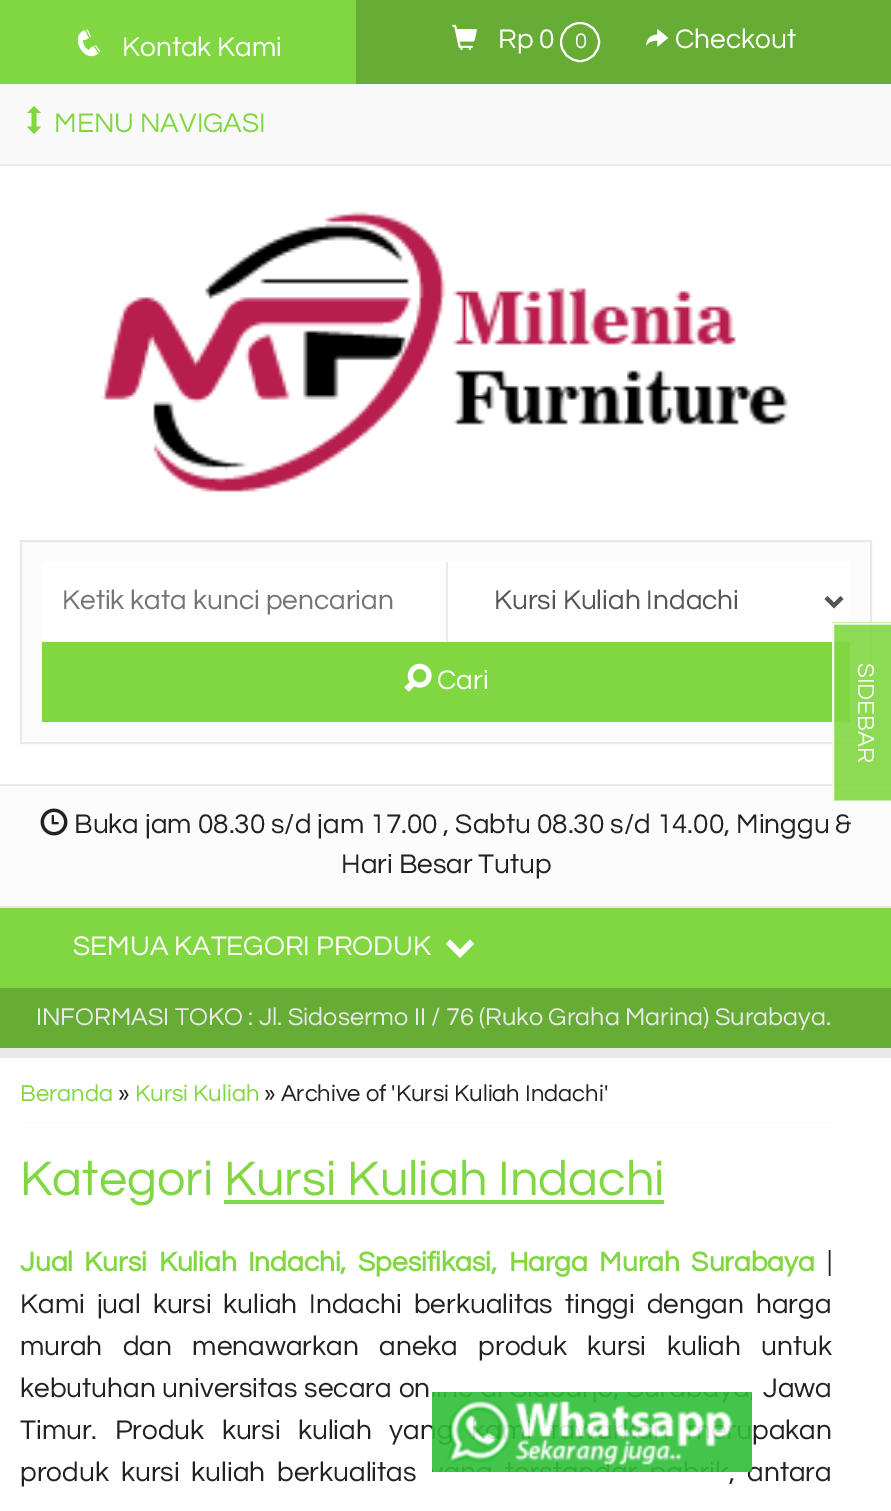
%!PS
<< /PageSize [891 1511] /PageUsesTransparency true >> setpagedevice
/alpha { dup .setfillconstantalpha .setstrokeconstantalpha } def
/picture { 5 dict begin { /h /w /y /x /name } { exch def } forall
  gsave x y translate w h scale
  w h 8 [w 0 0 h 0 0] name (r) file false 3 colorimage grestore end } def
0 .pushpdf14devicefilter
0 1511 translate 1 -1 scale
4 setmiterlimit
0.976 setgray
0 0 891 1511 rectfill
0.506 0.843 0.259 setrgbcolor
0 0 356 84 rectfill
(img1.rgb) 77 29 24 28 picture
/Questrial-Regular [28 0 0 -28 0 0] selectfont
1 setgray
122 56 moveto (Kontak Kami) show
0.404 0.675 0.208 setrgbcolor
356 0 535 84 rectfill
(img2.rgb) 452 24 25 26 picture
1 setgray
498 48 moveto (Rp 0) show
2 setlinewidth
newpath 580 42 19 0 360 arc closepath stroke
/Questrial-Regular [22 0 0 -22 0 0] selectfont
575 48 moveto (0) show
(img3.rgb) 646 29 22 18 picture
/Questrial-Regular [28 0 0 -28 0 0] selectfont
675 48 moveto (Checkout) show
0.914 setgray
0 164 891 2 rectfill
0.506 0.843 0.259 setrgbcolor
newpath 41 113 moveto 34 106 lineto 27 113 lineto 31.5 113 lineto 31.5 126.5 lineto 27 126.5 lineto 34 134 lineto 41 126.5 lineto 36.5 126.5 lineto 36.5 113 lineto closepath fill
54 132 moveto (MENU NAVIGASI) show
1 setgray
0 166 891 618 rectfill
(img4.rgb) 101 211 687 281 picture
0.988 setgray
newpath 21 541 moveto 871 541 lineto 871 743 lineto 21 743 lineto closepath gsave fill grestore
0.914 setgray
stroke
1 setgray
42 562 404 80 rectfill
0.459 setgray
62 609 moveto (Ketik kata kunci pencarian) show
1 setgray
448 562 402 80 rectfill
0.914 setgray
446 562 2 80 rectfill
0.333 setgray
4 setlinewidth
newpath 826 597.5 moveto 834 605.5 lineto 842 597.5 lineto stroke
494 609 moveto (Kursi Kuliah Indachi) show
0.506 0.843 0.259 setrgbcolor
42 642 808 80 rectfill
(img5.rgb) 404 663 28 29 picture
1 setgray
437 689 moveto (Cari) show
0.506 0.843 0.259 setrgbcolor
0 908 891 80 rectfill
0.988 setgray
0 786 891 120 rectfill
0.914 setgray
0 784 891 2 rectfill
0 906 891 2 rectfill
(img6.rgb) 40 808 28 28 picture
0.133 setgray
74 833 moveto (Buka jam 08.30 s/d jam 17.00 , Sabtu 08.30 s/d 14.00, Minggu &) show
341 873 moveto (Hari Besar Tutup) show
1 setgray
73 955 moveto (SEMUA KATEGORI PRODUK) show
newpath 460 958 moveto 474 944 lineto 470 939.5 lineto 460 949.5 lineto 450 939.5 lineto 446 944 lineto closepath fill
0.404 0.675 0.208 setrgbcolor
0 988 891 60 rectfill
/Questrial-Regular [25.2 0 0 -25.2 0 0] selectfont
0.914 setgray
36 1025 moveto (INFORMASI TOKO : Jl. Sidosermo II / 76 \(Ruko Graha Marina\) Surabaya.) show
1 setgray
0 1058 891 453 rectfill
0.914 setgray
0 1048 891 10 rectfill
0.9 alpha
0.506 0.843 0.259 setrgbcolor
832 622 59 180 rectfill
1 setgray
2 setlinewidth
newpath 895 623.5 moveto 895 801.5 lineto 833 801.5 lineto 833 623.5 lineto closepath stroke
/Questrial-Regular [24 0 0 -24 0 0] selectfont
1 alpha
0.957 0.984 0.933 setrgbcolor
gsave 858 663 translate 90 rotate 0 0 moveto (SIDEBAR) show grestore
0.988 setgray
20 1122 812 2 rectfill
/Questrial-Regular [23.75 0 0 -23.75 0 0] selectfont
0.506 0.843 0.259 setrgbcolor
20 1101 moveto (Beranda) show
0.133 setgray
118 1101 moveto (») show
0.506 0.843 0.259 setrgbcolor
135 1101 moveto (Kursi Kuliah) show
0.133 setgray
264 1101 moveto (» Archive of 'Kursi Kuliah Indachi') show
/Questrial-Regular [50.4 0 0 -50.4 0 0] selectfont
0.506 0.843 0.259 setrgbcolor
20 1195 moveto (Kategori Kursi Kuliah Indachi) show
224 1200 440 4 rectfill
/Questrial-Bold [28 0 0 -28 0 0] selectfont
20 1271 moveto 5.5 0 32 (Jual Kursi Kuliah Indachi, Spesifikasi, Harga Murah Surabaya) widthshow
/Questrial-Regular [28 0 0 -28 0 0] selectfont
0.133 setgray
827 1271 moveto (|) show
20 1313 moveto 6 0 32 (Kami jual kursi kuliah Indachi berkualitas tinggi dengan harga) widthshow
20 1355 moveto 14.5 0 32 (murah dan menawarkan aneka produk kursi kuliah untuk) widthshow
20 1397 moveto 1 0 32 (kebutuhan universitas secara on) widthshow
763 1397 moveto 1 0 32 (Jawa) widthshow
20 1439 moveto 11.5 0 32 (Timur. Produk kursi kuliah yan) widthshow
752 1439 moveto 11.5 0 32 (pakan) widthshow
20 1481 moveto 6 0 32 (produk kursi kuliah berkualitas) widthshow
729 1481 moveto 6 0 32 (, antara) widthshow
(img7.rgb) 432 1392 320 80 picture
.poppdf14devicefilter showpage
